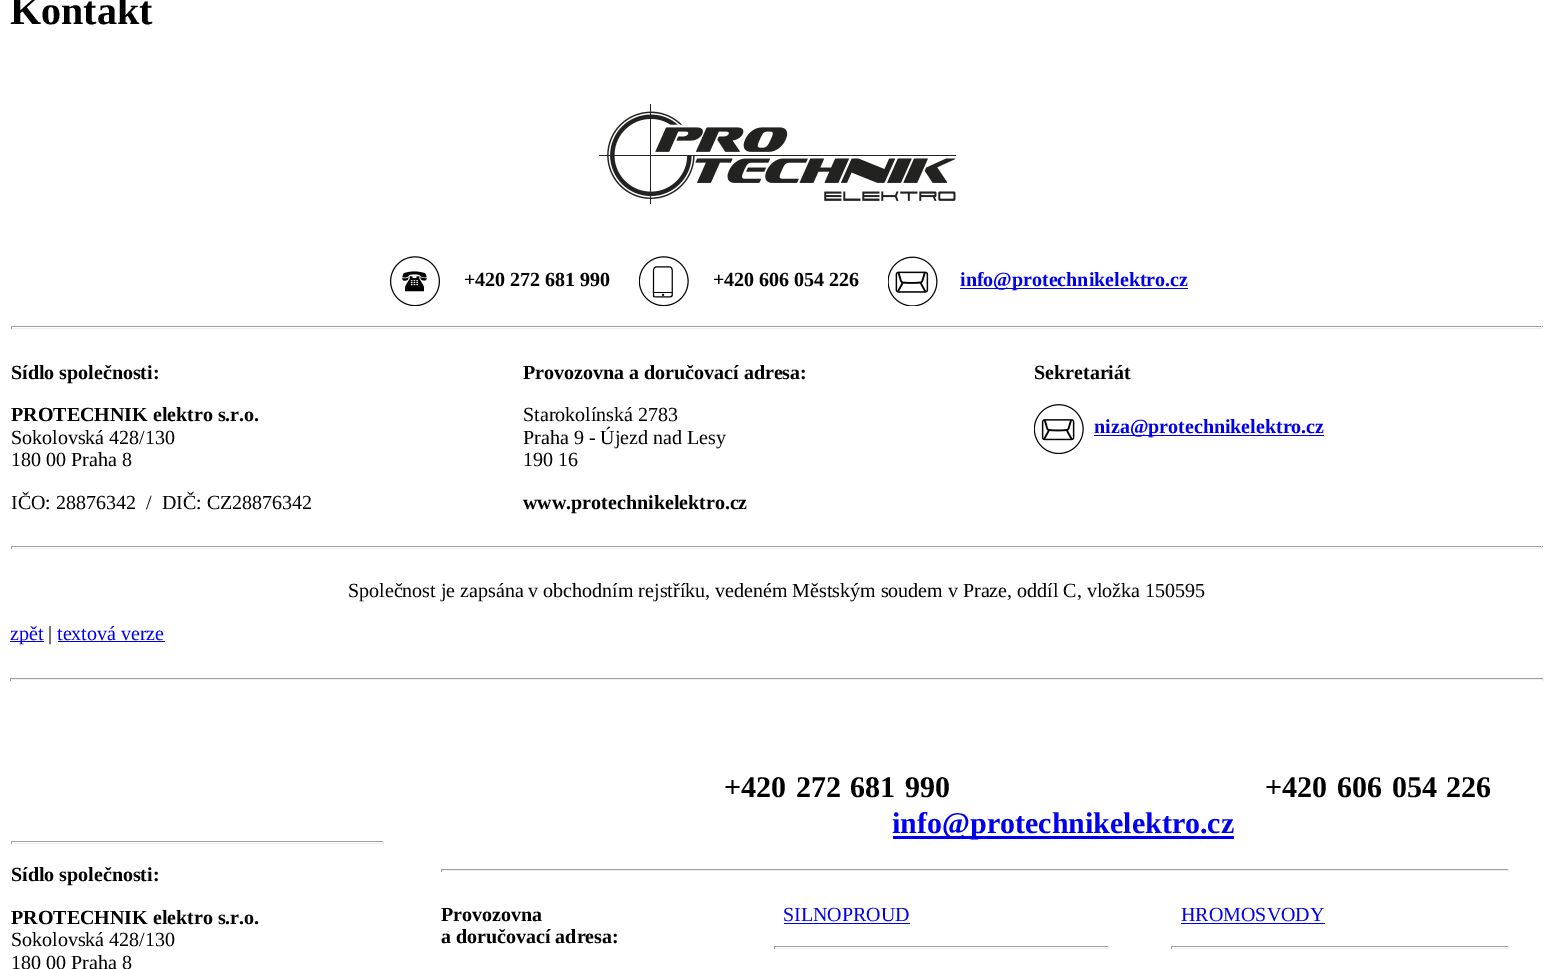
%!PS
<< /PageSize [1553 969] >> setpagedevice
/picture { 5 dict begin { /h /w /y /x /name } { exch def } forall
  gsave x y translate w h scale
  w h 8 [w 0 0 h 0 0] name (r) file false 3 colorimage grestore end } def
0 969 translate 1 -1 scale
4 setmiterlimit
1 setgray
0 0 1553 969 rectfill
/LiberationSerif-Bold [40 0 0 -40 0 0] selectfont
0 setgray
10 24 moveto (Kontakt) show
(img1.rgb) 599 104 357 100 picture
(img2.rgb) 390 256 50 50 picture
/LiberationSerif-Bold [20 0 0 -20 0 0] selectfont
464 286 moveto (+420 272 681 990) show
(img3.rgb) 639 256 50 50 picture
713 286 moveto (+420 606 054 226) show
(img4.rgb) 888 256 50 50 picture
0 0 0.933 setrgbcolor
960 288 228 1 rectfill
960 286 moveto (info@protechnikelektro.cz) show
0.624 setgray
11 326 1532 1 rectfill
0.933 setgray
1541 326 1 3 rectfill
11 328 1532 1 rectfill
0.624 setgray
11 326 1 3 rectfill
0 setgray
11 379 moveto (Sídlo společnosti:) show
11 421 moveto (PROTECHNIK elektro s.r.o.) show
/LiberationSerif-Regular [20 0 0 -20 0 0] selectfont
11 444 moveto (Sokolovská 428/130) show
11 466 moveto (180 00 Praha 8) show
11 509 moveto (IČO: 28876342  /  DIČ: CZ28876342) show
/LiberationSerif-Bold [20 0 0 -20 0 0] selectfont
523 379 moveto (Provozovna a doručovací adresa:) show
/LiberationSerif-Regular [20 0 0 -20 0 0] selectfont
523 421 moveto (Starokolínská 2783) show
523 444 moveto (Praha 9 - Újezd nad Lesy) show
523 466 moveto (190 16) show
/LiberationSerif-Bold [20 0 0 -20 0 0] selectfont
523 509 moveto (www.protechnikelektro.cz) show
1034 379 moveto (Sekretariát) show
(img5.rgb) 1034 404 50 50 picture
0 0 0.933 setrgbcolor
1094 435 230 1 rectfill
1094 433 moveto (niza@protechnikelektro.cz) show
0.624 setgray
11 546 1532 1 rectfill
0.933 setgray
1541 546 1 3 rectfill
11 548 1532 1 rectfill
0.624 setgray
11 546 1 3 rectfill
/LiberationSerif-Regular [20 0 0 -20 0 0] selectfont
0 setgray
348 597 moveto (Společnost je zapsána v obchodním rejstříku, vedeném Městským soudem v Praze, oddíl C, vložka 150595) show
0 0 0.933 setrgbcolor
10 641 34 1 rectfill
10 640 moveto (zpět) show
0 setgray
48 640 moveto (|) show
0 0 0.933 setrgbcolor
57 640 moveto (textová verze) show
58 641 107 1 rectfill
0.624 setgray
10 678 1534 1 rectfill
0.933 setgray
1543 678 1 3 rectfill
10 679 1534 1 rectfill
0.624 setgray
10 678 1 3 rectfill
/LiberationSerif-Bold [30 0 0 -30 0 0] selectfont
0 setgray
724 797 moveto 2 0 32 (+420 272 681 990) widthshow
1265 797 moveto (+420) show
1337 797 moveto 2 0 32 (606 054 226) widthshow
0 0 0.933 setrgbcolor
893 836 341 3 rectfill
892 833 moveto (info@protechnikelektro.cz) show
0.624 setgray
441 869 1068 1 rectfill
0.933 setgray
1508 869 1 3 rectfill
441 870 1068 1 rectfill
0.624 setgray
441 869 1 3 rectfill
11 841 373 1 rectfill
0.933 setgray
383 841 1 3 rectfill
11 843 373 1 rectfill
0.624 setgray
11 841 1 3 rectfill
/LiberationSerif-Bold [20 0 0 -20 0 0] selectfont
0 setgray
11 881 moveto (Sídlo společnosti:) show
11 924 moveto (PROTECHNIK elektro s.r.o.) show
/LiberationSerif-Regular [20 0 0 -20 0 0] selectfont
11 946 moveto (Sokolovská 428/130) show
11 969 moveto (180 00 Praha 8) show
/LiberationSerif-Bold [20 0 0 -20 0 0] selectfont
441 921 moveto (Provozovna) show
441 943 moveto (a doručovací adresa:) show
/LiberationSerif-Regular [20 0 0 -20 0 0] selectfont
0 0 0.933 setrgbcolor
783 921 moveto (SILNOPROUD) show
784 923 126 1 rectfill
0.624 setgray
774 946 335 1 rectfill
0.933 setgray
1108 946 1 3 rectfill
774 948 335 1 rectfill
0.624 setgray
774 946 1 3 rectfill
0 0 0.933 setrgbcolor
1181 921 moveto (HROMOSVODY) show
1181 923 144 1 rectfill
0.624 setgray
1171 946 338 1 rectfill
0.933 setgray
1508 946 1 3 rectfill
1171 948 338 1 rectfill
0.624 setgray
1171 946 1 3 rectfill
showpage
